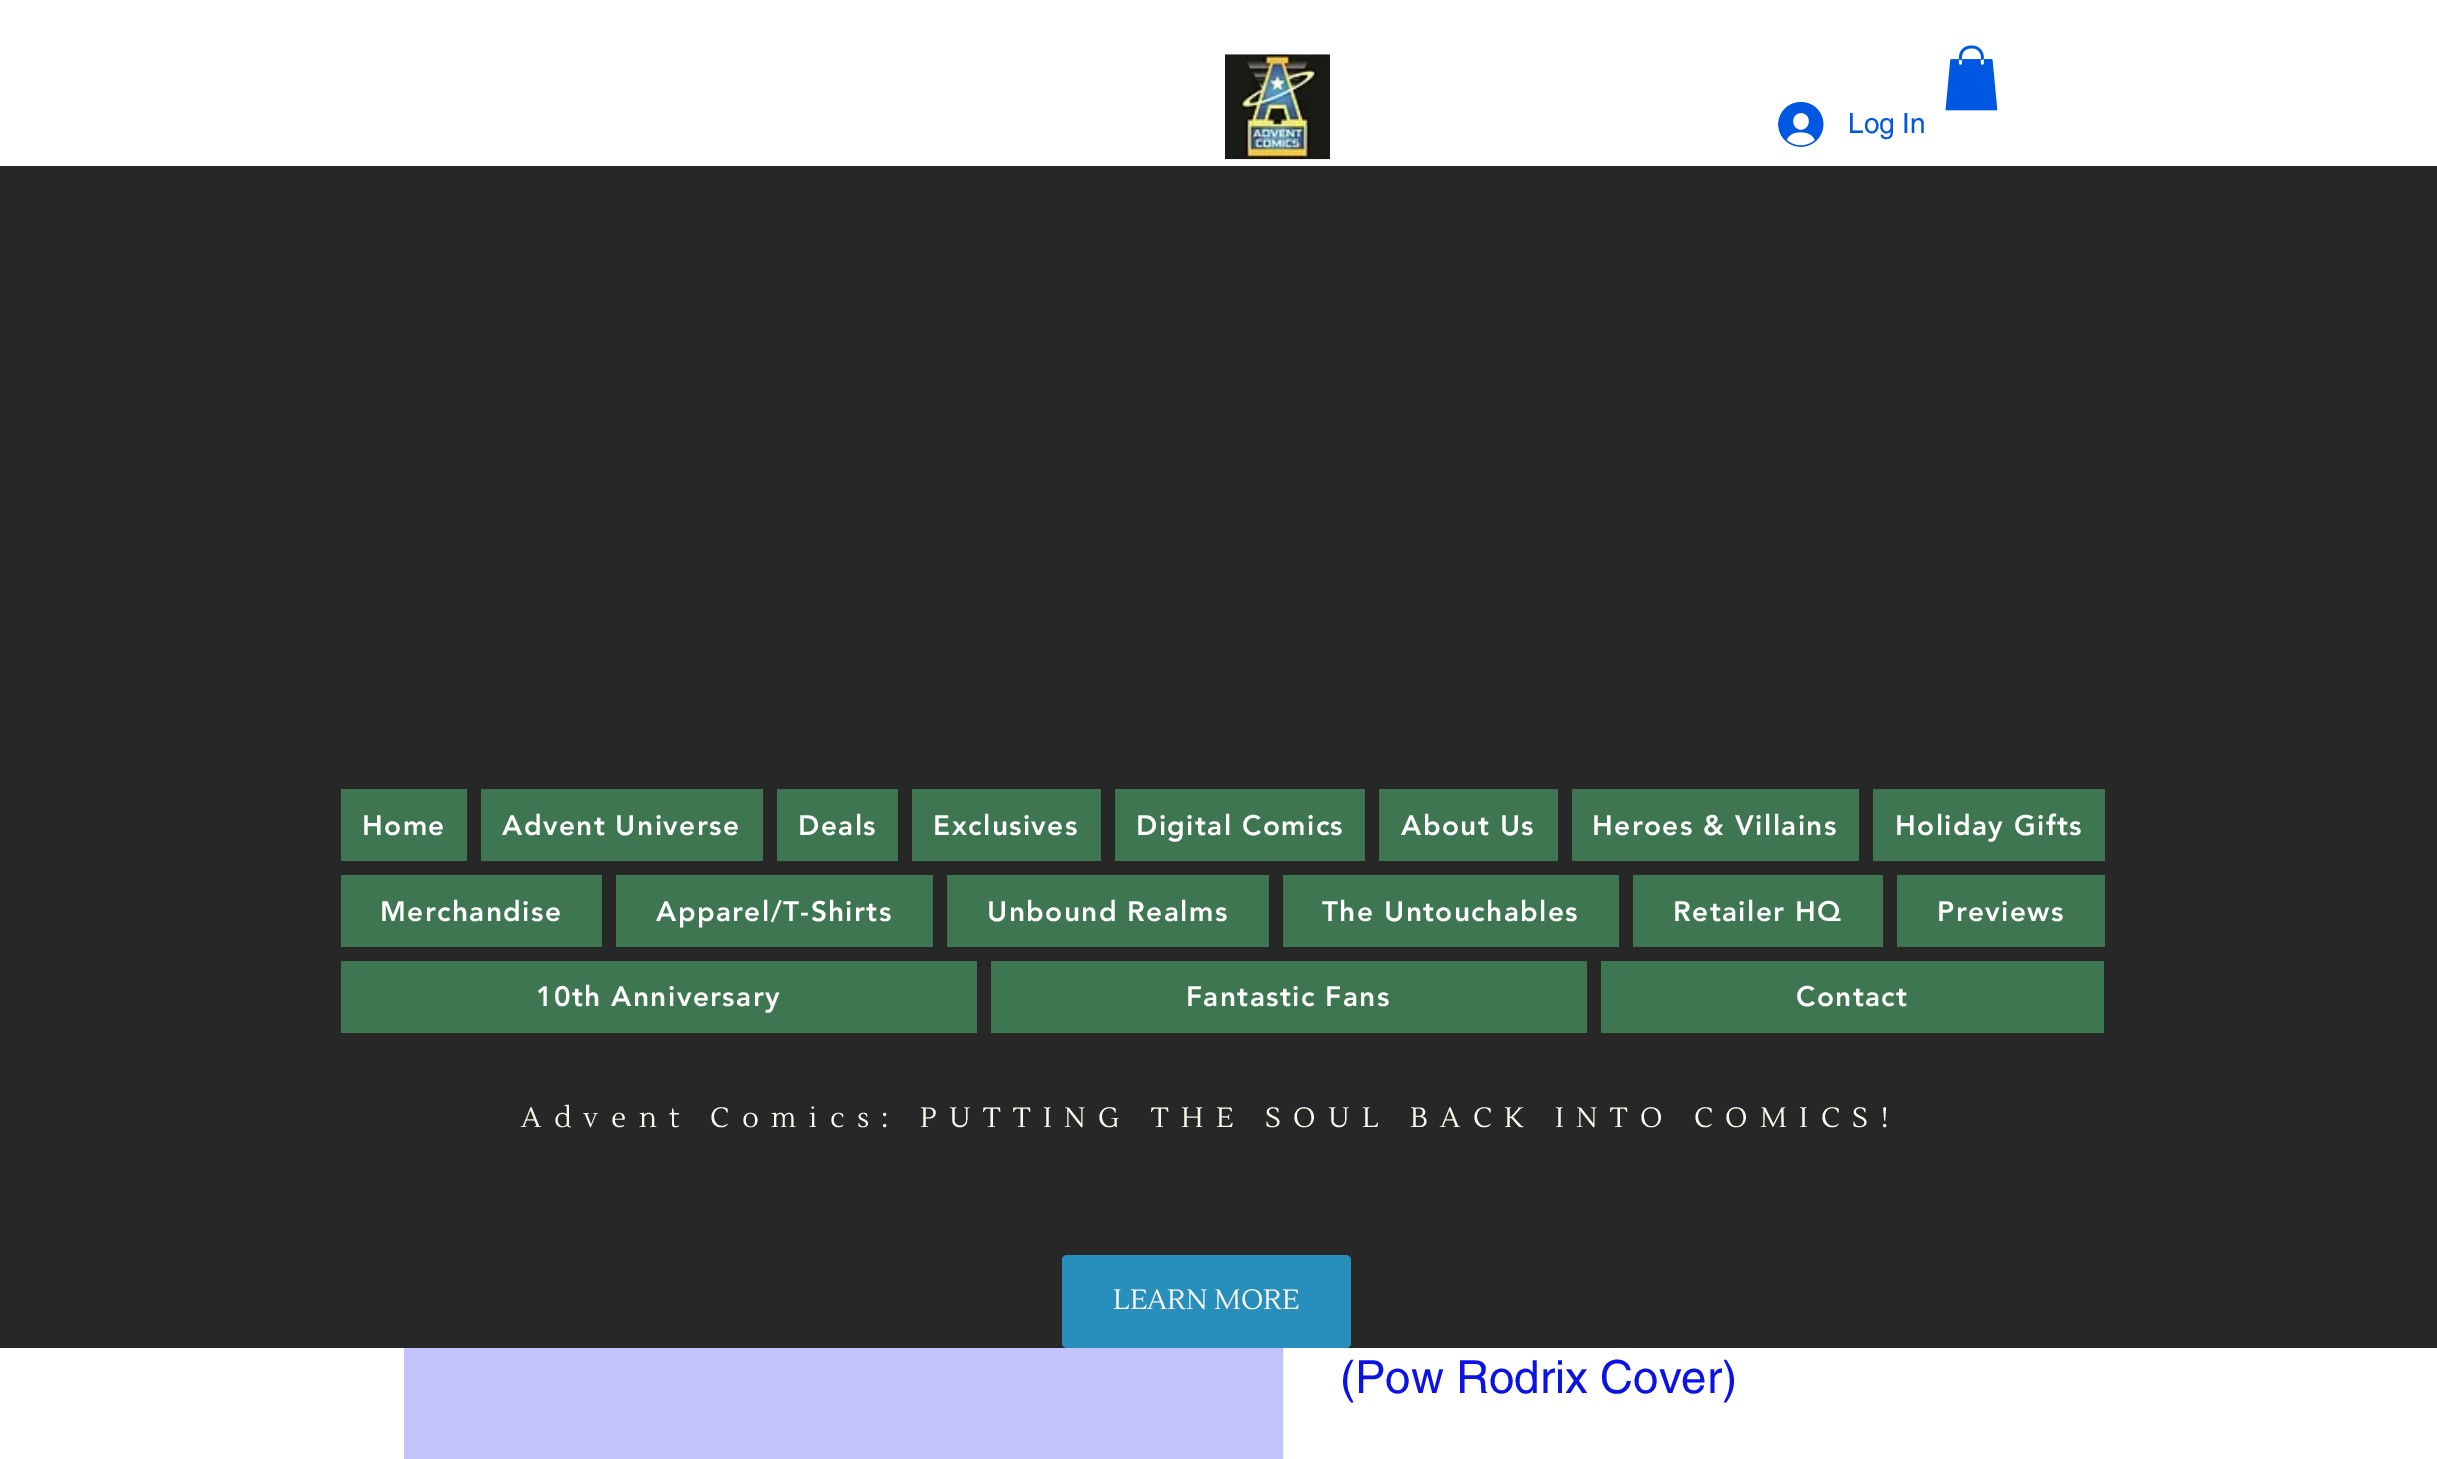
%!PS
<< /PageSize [2437 1459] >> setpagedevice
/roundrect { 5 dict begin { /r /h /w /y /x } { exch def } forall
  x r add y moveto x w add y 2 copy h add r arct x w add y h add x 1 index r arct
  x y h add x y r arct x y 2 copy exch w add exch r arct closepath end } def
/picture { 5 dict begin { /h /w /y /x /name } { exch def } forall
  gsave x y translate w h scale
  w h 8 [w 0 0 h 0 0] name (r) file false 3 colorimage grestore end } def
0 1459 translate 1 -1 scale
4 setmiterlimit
1 setgray
0 0 2437 1459 rectfill
(img1.rgb) 1225 54 105 106 picture
(img2.rgb) 1778 102 46 45 picture
/helvetica-Regular [28 0 0 -28 0 0] selectfont
0 0.341 0.882 setrgbcolor
1848 133 moveto (Log In) show
(img3.rgb) 1945 45 53 66 picture
0.761 0.769 0.976 setrgbcolor
2 setlinewidth
405 1298 877 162 rectstroke
0.153 setgray
0 166 2437 1182 rectfill
0.247 0.463 0.322 setrgbcolor
341 789 126 72 rectfill
/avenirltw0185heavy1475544-Black [28 0 0 -28 0 0] selectfont
1 setgray
362 835 moveto 1.4 0 (Home) ashow
0.247 0.463 0.322 setrgbcolor
481 789 282 72 rectfill
1 setgray
502 835 moveto 1.4 0 (Advent Universe) ashow
0.247 0.463 0.322 setrgbcolor
777 789 121 72 rectfill
1 setgray
798 835 moveto 1.4 0 (Deals) ashow
0.247 0.463 0.322 setrgbcolor
912 789 189 72 rectfill
1 setgray
933 835 moveto 1.4 0 (Exclusives) ashow
0.247 0.463 0.322 setrgbcolor
1115 789 250 72 rectfill
1 setgray
1136 835 moveto 1.4 0 (Digital Comics) ashow
0.247 0.463 0.322 setrgbcolor
1379 789 179 72 rectfill
1 setgray
1401 835 moveto 1.4 0 (About Us) ashow
0.247 0.463 0.322 setrgbcolor
1572 789 287 72 rectfill
1 setgray
1592 835 moveto 1.4 0 (Heroes & Villains) ashow
0.247 0.463 0.322 setrgbcolor
1873 789 232 72 rectfill
1 setgray
1895 835 moveto 1.4 0 (Holiday Gifts) ashow
0.247 0.463 0.322 setrgbcolor
341 875 261 72 rectfill
1 setgray
380 921 moveto 1.4 0 (Merchandise) ashow
0.247 0.463 0.322 setrgbcolor
616 875 317 72 rectfill
1 setgray
656 921 moveto 1.4 0 (Apparel/T-Shirts) ashow
0.247 0.463 0.322 setrgbcolor
947 875 322 72 rectfill
1 setgray
987 921 moveto 1.4 0 (Unbound Realms) ashow
0.247 0.463 0.322 setrgbcolor
1283 875 336 72 rectfill
1 setgray
1322 921 moveto 1.4 0 (The Untouchables) ashow
0.247 0.463 0.322 setrgbcolor
1633 875 250 72 rectfill
1 setgray
1673 921 moveto 1.4 0 (Retailer HQ) ashow
0.247 0.463 0.322 setrgbcolor
1897 875 208 72 rectfill
1 setgray
1937 921 moveto 1.4 0 (Previews) ashow
0.247 0.463 0.322 setrgbcolor
341 961 636 72 rectfill
1 setgray
536 1006 moveto 1.4 0 (10th Anniversary) ashow
0.247 0.463 0.322 setrgbcolor
991 961 596 72 rectfill
1 setgray
1186 1006 moveto 1.4 0 (Fantastic Fans) ashow
0.247 0.463 0.322 setrgbcolor
1601 961 503 72 rectfill
1 setgray
1796 1006 moveto 1.4 0 (Contact) ashow
/Lustria-Regular [28 0 0 -28 0 0] selectfont
0.992 0.976 0.929 setrgbcolor
521 1127 moveto 12.45 0 (Advent Comics: PUTTING THE SOUL BACK INTO COMICS!) ashow
0.157 0.561 0.741 setrgbcolor
1062 1255 289 93 5 roundrect fill
0.992 0.976 0.929 setrgbcolor
1113 1309 moveto (LEARN MORE) show
0.761 0.769 0.976 setrgbcolor
406 1348 875 111 rectfill
/helvetica-Regular [45.5 0 0 -45.5 0 0] selectfont
0.047 0.071 0.902 setrgbcolor
1340 1393 moveto (\(Pow Rodrix Cover\)) show
showpage
